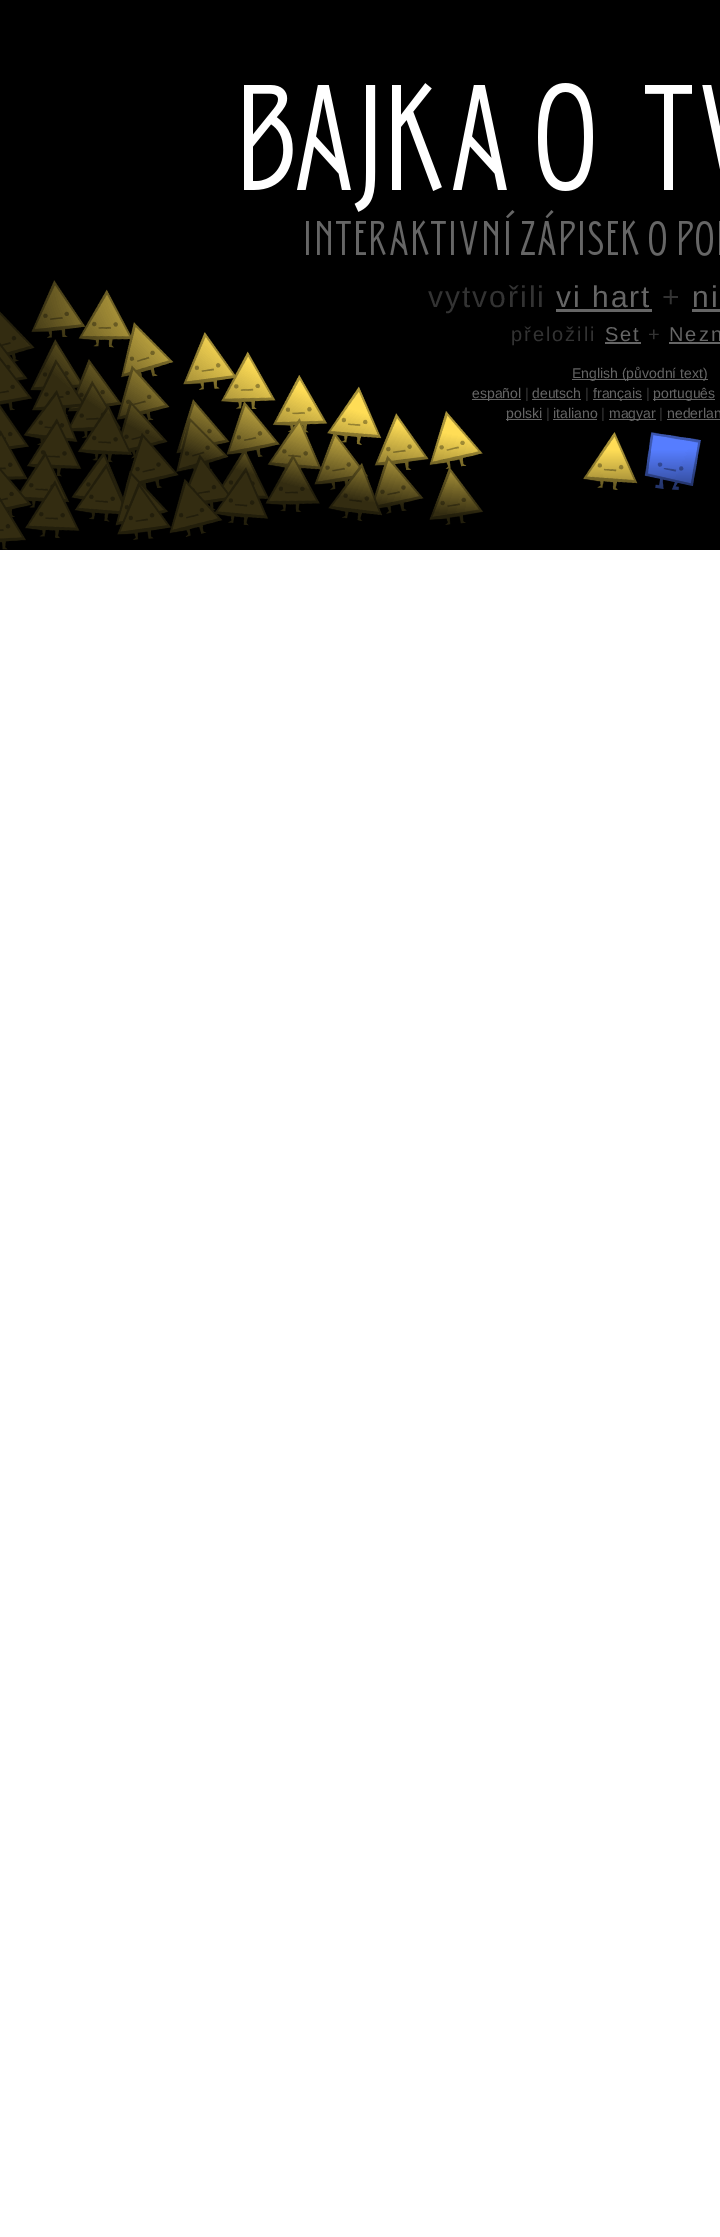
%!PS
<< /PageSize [720 2237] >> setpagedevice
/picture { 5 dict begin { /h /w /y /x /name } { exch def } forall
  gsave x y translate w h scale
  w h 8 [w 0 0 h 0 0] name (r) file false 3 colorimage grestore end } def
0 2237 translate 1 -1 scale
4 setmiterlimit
1 setgray
0 0 720 2237 rectfill
0 setgray
0 0 720 550 rectfill
(img2.rgb) 0 280 701 270 picture
(img1.rgb) 0 83 720 467 picture
/LiberationSans-Regular [30 0 0 -30 0 0] selectfont
0.2 setgray
428 307 moveto 2 0 (vytvořili) ashow
0.4 setgray
556 307 moveto 2 0 (vi hart) ashow
556 309 96 3 rectfill
0.2 setgray
662 307 moveto 2 0 (+) ashow
0.4 setgray
692 307 moveto 2 0 (ni) ashow
692 309 28 3 rectfill
/LiberationSans-Regular [20 0 0 -20 0 0] selectfont
0.2 setgray
511 341 moveto 2 0 (přeložili) ashow
0.4 setgray
605 341 moveto 2 0 (Set) ashow
605 342 36 2 rectfill
0.2 setgray
648 341 moveto 2 0 (+) ashow
0.4 setgray
669 341 moveto 2 0 (Nezn) ashow
669 342 51 2 rectfill
572 379 136 1 rectfill
/LiberationSans-Regular [14 0 0 -14 0 0] selectfont
572 378 moveto (English \(původní text\)) show
472 399 49 1 rectfill
472 398 moveto (español) show
0.2 setgray
525 398 moveto (|) show
0.4 setgray
532 398 moveto (deutsch) show
532 399 49 1 rectfill
0.2 setgray
585 398 moveto (|) show
0.4 setgray
593 399 49 1 rectfill
593 398 moveto (français) show
0.2 setgray
646 398 moveto (|) show
0.4 setgray
653 399 62 1 rectfill
653 398 moveto (português) show
506 419 36 1 rectfill
506 418 moveto (polski) show
0.2 setgray
546 418 moveto (|) show
0.4 setgray
553 418 moveto (italiano) show
553 419 44 1 rectfill
0.2 setgray
601 418 moveto (|) show
0.4 setgray
609 419 47 1 rectfill
609 418 moveto (magyar) show
0.2 setgray
659 418 moveto (|) show
0.4 setgray
667 418 moveto (nederlan) show
667 419 53 1 rectfill
showpage
